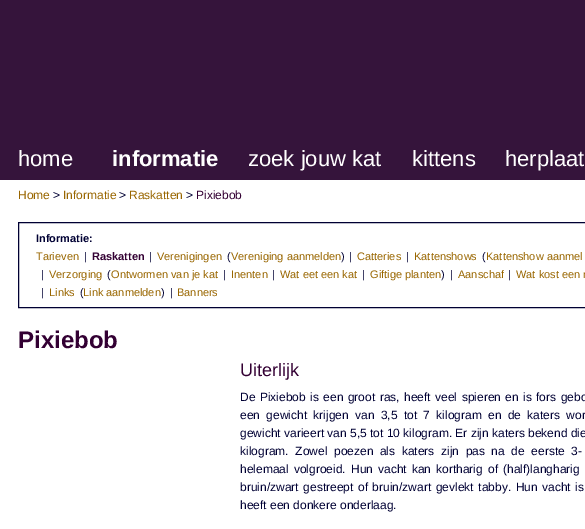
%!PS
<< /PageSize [585 529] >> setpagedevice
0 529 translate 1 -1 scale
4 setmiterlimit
1 setgray
0 0 585 529 rectfill
0.208 0.078 0.231 setrgbcolor
0 0 585 180 rectfill
/LiberationSans-Regular [22 0 0 -22 0 0] selectfont
1 setgray
18 166 moveto (home) show
/LiberationSans-Bold [22 0 0 -22 0 0] selectfont
112 166 moveto (informatie) show
/LiberationSans-Regular [22 0 0 -22 0 0] selectfont
248 166 moveto (zoek jouw kat) show
412 166 moveto (kittens) show
505 166 moveto (herplaat) show
/LiberationSans-Regular [12 0 0 -12 0 0] selectfont
0.6 0.4 0 setrgbcolor
18 199 moveto (Home) show
0 0 0.2 setrgbcolor
53 199 moveto (>) show
0.6 0.4 0 setrgbcolor
63 199 moveto (Informatie) show
0 0 0.2 setrgbcolor
119 199 moveto (>) show
0.6 0.4 0 setrgbcolor
129 199 moveto (Raskatten) show
0 0 0.2 setrgbcolor
186 199 moveto (>) show
0.2 0 0.2 setrgbcolor
196 199 moveto (Pixiebob) show
0 0 0.2 setrgbcolor
18.5 222.5 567 85 rectstroke
/LiberationSans-Bold [11 0 0 -11 0 0] selectfont
36 242 moveto (Informatie:) show
/LiberationSans-Regular [11 0 0 -11 0 0] selectfont
0.6 0.4 0 setrgbcolor
36 260 moveto (Tarieven) show
0 0 0.2 setrgbcolor
84 260 moveto (|) show
/LiberationSans-Bold [11 0 0 -11 0 0] selectfont
0.2 0 0.2 setrgbcolor
92 260 moveto (Raskatten) show
/LiberationSans-Regular [11 0 0 -11 0 0] selectfont
0 0 0.2 setrgbcolor
149 260 moveto (|) show
0.6 0.4 0 setrgbcolor
157 260 moveto (Verenigingen) show
0 0 0.2 setrgbcolor
227 260 moveto (\() show
0.6 0.4 0 setrgbcolor
231 260 moveto (Vereniging aanmelden) show
0 0 0.2 setrgbcolor
341 260 moveto (\)) show
349 260 moveto (|) show
0.6 0.4 0 setrgbcolor
357 260 moveto (Catteries) show
0 0 0.2 setrgbcolor
406 260 moveto (|) show
0.6 0.4 0 setrgbcolor
414 260 moveto (Kattenshows) show
0 0 0.2 setrgbcolor
482 260 moveto (\() show
0.6 0.4 0 setrgbcolor
486 260 moveto (Kattenshow aanmel) show
0 0 0.2 setrgbcolor
41 278 moveto (|) show
0.6 0.4 0 setrgbcolor
49 278 moveto (Verzorging) show
0 0 0.2 setrgbcolor
107 278 moveto (\() show
0.6 0.4 0 setrgbcolor
111 278 moveto (Ontwormen van je kat) show
0 0 0.2 setrgbcolor
223 278 moveto (|) show
0.6 0.4 0 setrgbcolor
231 278 moveto (Inenten) show
0 0 0.2 setrgbcolor
272 278 moveto (|) show
0.6 0.4 0 setrgbcolor
280 278 moveto (Wat eet een kat) show
0 0 0.2 setrgbcolor
362 278 moveto (|) show
0.6 0.4 0 setrgbcolor
370 278 moveto (Giftige planten) show
0 0 0.2 setrgbcolor
441 278 moveto (\)) show
450 278 moveto (|) show
0.6 0.4 0 setrgbcolor
458 278 moveto (Aanschaf) show
0 0 0.2 setrgbcolor
508 278 moveto (|) show
0.6 0.4 0 setrgbcolor
516 278 moveto (Wat kost een r) show
0 0 0.2 setrgbcolor
41 296 moveto (|) show
0.6 0.4 0 setrgbcolor
49 296 moveto (Links) show
0 0 0.2 setrgbcolor
80 296 moveto (\() show
0.6 0.4 0 setrgbcolor
83 296 moveto (Link aanmelden) show
0 0 0.2 setrgbcolor
161 296 moveto (\)) show
170 296 moveto (|) show
0.6 0.4 0 setrgbcolor
177 296 moveto (Banners) show
/LiberationSans-Bold [24 0 0 -24 0 0] selectfont
0.2 0 0.2 setrgbcolor
18 348 moveto (Pixiebob) show
/LiberationSans-Regular [18 0 0 -18 0 0] selectfont
240 376 moveto (Uiterlijk) show
/LiberationSans-Regular [12 0 0 -12 0 0] selectfont
0 0 0.2 setrgbcolor
240 401 moveto 1.1 0 32 (De Pixiebob is een groot ras, heeft veel spieren en is fors gebo) widthshow
240 419 moveto 3 0 32 (een gewicht krijgen van 3,5 tot 7 kilogram en de katers wor) widthshow
240 437 moveto (gewicht varieert van 5,5 tot 10 kilogram. Er zijn katers bekend die) show
240 455 moveto 3.25 0 32 (kilogram. Zowel poezen als katers zijn pas na de eerste 3-) widthshow
240 473 moveto 1.75 0 32 (helemaal volgroeid. Hun vacht kan kortharig of \(half\)langharig) widthshow
240 491 moveto 1.25 0 32 (bruin/zwart gestreept of bruin/zwart gevlekt tabby. Hun vacht is) widthshow
240 509 moveto (heeft een donkere onderlaag.) show
showpage
